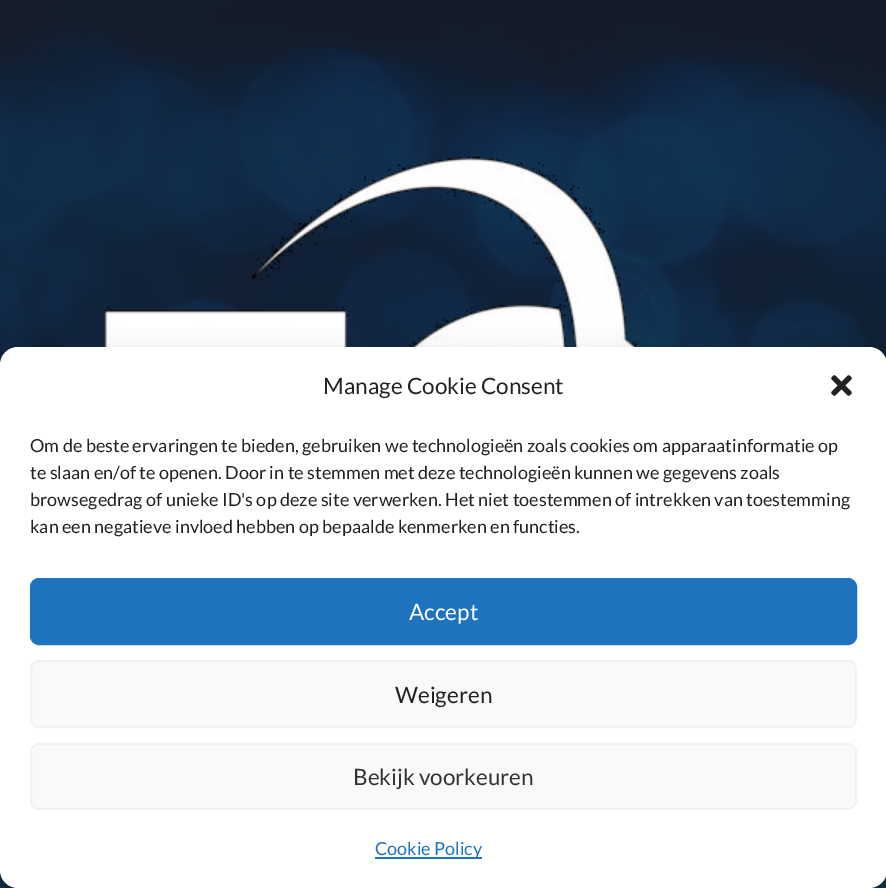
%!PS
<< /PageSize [886 888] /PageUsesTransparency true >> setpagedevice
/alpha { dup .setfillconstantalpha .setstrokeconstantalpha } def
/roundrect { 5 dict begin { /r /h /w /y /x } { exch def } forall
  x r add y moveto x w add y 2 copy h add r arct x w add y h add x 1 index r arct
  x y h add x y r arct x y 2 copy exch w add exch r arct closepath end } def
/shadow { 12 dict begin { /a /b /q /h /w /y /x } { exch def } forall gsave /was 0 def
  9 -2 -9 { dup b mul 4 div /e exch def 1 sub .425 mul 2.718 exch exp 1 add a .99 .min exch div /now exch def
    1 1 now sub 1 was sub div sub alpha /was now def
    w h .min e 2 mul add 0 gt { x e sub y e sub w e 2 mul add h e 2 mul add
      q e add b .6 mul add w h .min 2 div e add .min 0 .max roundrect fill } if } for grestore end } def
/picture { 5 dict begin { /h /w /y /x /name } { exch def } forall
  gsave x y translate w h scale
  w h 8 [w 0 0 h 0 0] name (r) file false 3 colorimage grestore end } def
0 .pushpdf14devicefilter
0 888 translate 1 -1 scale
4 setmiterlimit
0.078 0.122 0.2 setrgbcolor
0 0 886 888 rectfill
(img1.rgb) 0 0 886 888 picture
(img2.rgb) 104 156 534 191 picture
0 setgray
0 356 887 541 18 4.5 0.23 shadow
0 362 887 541 18 15 0.19 shadow
1 setgray
0 347 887 541 18 roundrect fill
/Lato-Regular [22.5 0 0 -22.5 0 0] selectfont
0.133 setgray
323 394 moveto (Manage Cookie Consent) show
(img3.rgb) 831 375 21 21 picture
/Lato-Regular [18 0 0 -18 0 0] selectfont
30 452 moveto (Om de beste ervaringen te bieden, gebruiken we technologieën zoals cookies om apparaatinformatie op) show
30 479 moveto (te slaan en/of te openen. Door in te stemmen met deze technologieën kunnen we gegevens zoals) show
30 506 moveto (browsegedrag of unieke ID's op deze site verwerken. Het niet toestemmen of intrekken van toestemming) show
30 533 moveto (kan een negatieve invloed hebben op bepaalde kenmerken en functies.) show
0.118 0.451 0.745 setrgbcolor
31 579 825 65 8 roundrect gsave fill grestore
2 setlinewidth
stroke
/Lato-Regular [22.5 0 0 -22.5 0 0] selectfont
1 setgray
409 620 moveto (Accept) show
0.976 setgray
31 661 825 66 8 roundrect gsave fill grestore
0.949 setgray
stroke
0.133 setgray
395 703 moveto (Weigeren) show
0.976 setgray
31 744 825 65 8 roundrect gsave fill grestore
0.949 setgray
stroke
0.2 setgray
353 785 moveto (Bekijk voorkeuren) show
0.118 0.451 0.745 setrgbcolor
375 857 107 2 rectfill
/Lato-Regular [18 0 0 -18 0 0] selectfont
375 855 moveto (Cookie Policy) show
.poppdf14devicefilter showpage
